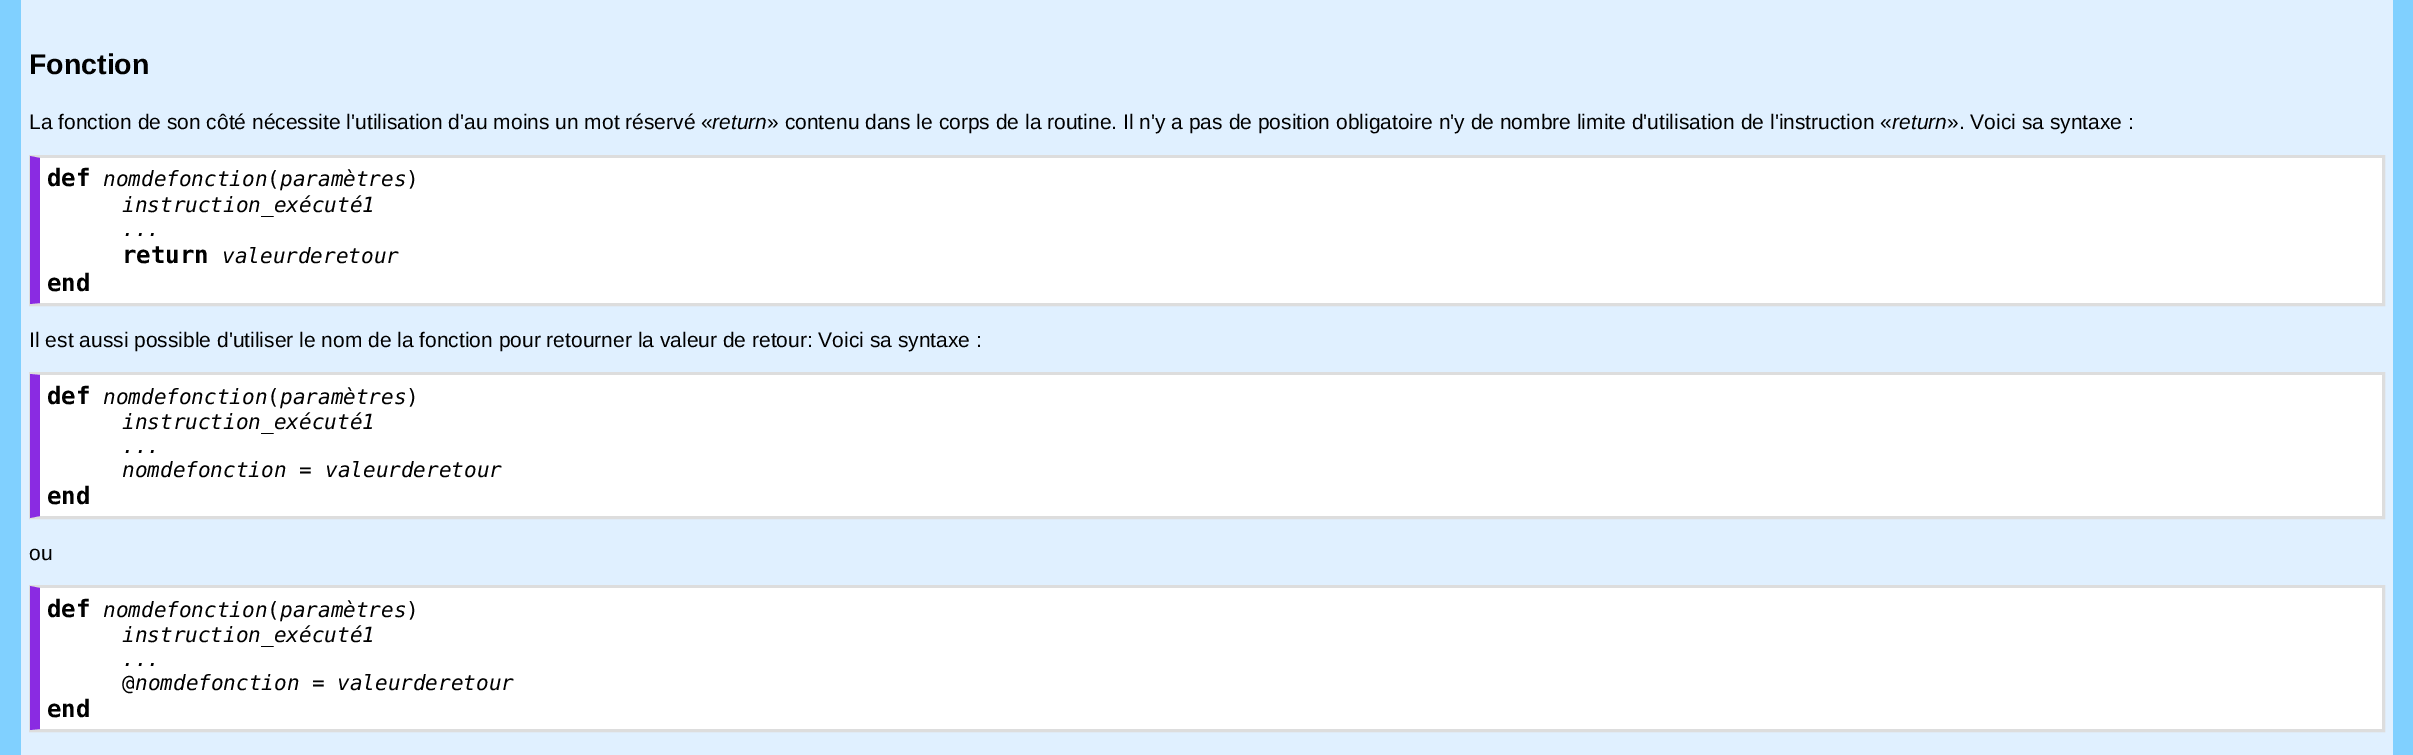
%!PS
<< /PageSize [2413 755] >> setpagedevice
0 755 translate 1 -1 scale
4 setmiterlimit
0.502 0.816 1 setrgbcolor
0 0 2413 755 rectfill
0.878 0.941 1 setrgbcolor
21 0 2372 755 rectfill
/LiberationSans-Bold [28.5 0 0 -28.5 0 0] selectfont
0 setgray
29 74 moveto (Fonction) show
/LiberationSans-Regular [21 0 0 -21 0 0] selectfont
29 129 moveto (La fonction de son côté nécessite l'utilisation d'au moins un mot réservé «) show
/LiberationSans-Italic [21 0 0 -21 0 0] selectfont
712 129 moveto (return) show
/LiberationSans-Regular [21 0 0 -21 0 0] selectfont
767 129 moveto (» contenu dans le corps de la routine. Il n'y a pas de position obligatoire n'y de nombre limite d'utilisation de l'instruction «) show
/LiberationSans-Italic [21 0 0 -21 0 0] selectfont
1892 129 moveto (return) show
/LiberationSans-Regular [21 0 0 -21 0 0] selectfont
1947 129 moveto (». Voici sa syntaxe :) show
1 setgray
31 157 2351 147 rectfill
0.867 setgray
2 setlinewidth
30 156 2354 149 rectstroke
newpath 30 156 moveto 2384 156 lineto 2382 158 lineto 40 158 lineto closepath fill
2382 156 1 149 rectfill
newpath 2384 304 moveto 30 304 lineto 40 303 lineto 2382 303 lineto closepath fill
0.541 0.169 0.886 setrgbcolor
newpath 30 304 moveto 30 156 lineto 40 158 lineto 40 303 lineto closepath fill
/DejaVuSansMono-Bold [24 0 0 -24 0 0] selectfont
0 setgray
47 186 moveto (def) show
/DejaVuSansMono-Italic [21 0 0 -21 0 0] selectfont
103 186 moveto (nomdefonction paramètres) show
/DejaVuSansMono-Regular [21 0 0 -21 0 0] selectfont
267 186 moveto (\() show
406 186 moveto (\)) show
/DejaVuSansMono-Italic [21 0 0 -21 0 0] selectfont
122 212 moveto (instruction_exécuté1) show
122 236 moveto (...) show
/DejaVuSansMono-Bold [24 0 0 -24 0 0] selectfont
122 263 moveto (return) show
/DejaVuSansMono-Italic [21 0 0 -21 0 0] selectfont
222 263 moveto (valeurderetour) show
/DejaVuSansMono-Bold [24 0 0 -24 0 0] selectfont
47 291 moveto (end) show
/LiberationSans-Regular [21 0 0 -21 0 0] selectfont
29 347 moveto (Il est aussi possible d'utiliser le nom de la fonction pour retourner la valeur de retour: Voici sa syntaxe :) show
1 setgray
31 374 2351 143 rectfill
0.867 setgray
30 373 2354 145 rectstroke
newpath 30 374 moveto 2384 374 lineto 2382 375 lineto 40 375 lineto closepath fill
2382 374 1 144 rectfill
newpath 2384 518 moveto 30 518 lineto 40 516 lineto 2382 516 lineto closepath fill
0.541 0.169 0.886 setrgbcolor
newpath 30 518 moveto 30 374 lineto 40 375 lineto 40 516 lineto closepath fill
/DejaVuSansMono-Bold [24 0 0 -24 0 0] selectfont
0 setgray
47 404 moveto (def) show
/DejaVuSansMono-Italic [21 0 0 -21 0 0] selectfont
103 404 moveto (nomdefonction paramètres) show
/DejaVuSansMono-Regular [21 0 0 -21 0 0] selectfont
267 404 moveto (\() show
406 404 moveto (\)) show
/DejaVuSansMono-Italic [21 0 0 -21 0 0] selectfont
122 429 moveto (instruction_exécuté1) show
122 453 moveto (...) show
122 477 moveto (nomdefonction) show
/DejaVuSansMono-Regular [21 0 0 -21 0 0] selectfont
299 477 moveto (=) show
/DejaVuSansMono-Italic [21 0 0 -21 0 0] selectfont
325 477 moveto (valeurderetour) show
/DejaVuSansMono-Bold [24 0 0 -24 0 0] selectfont
47 504 moveto (end) show
/LiberationSans-Regular [21 0 0 -21 0 0] selectfont
29 560 moveto (ou) show
1 setgray
31 587 2351 143 rectfill
0.867 setgray
30 586 2354 145 rectstroke
newpath 30 586 moveto 2384 586 lineto 2382 588 lineto 40 588 lineto closepath fill
2382 587 1 144 rectfill
newpath 2384 730 moveto 30 730 lineto 40 729 lineto 2382 729 lineto closepath fill
0.541 0.169 0.886 setrgbcolor
newpath 30 730 moveto 30 586 lineto 40 588 lineto 40 729 lineto closepath fill
/DejaVuSansMono-Bold [24 0 0 -24 0 0] selectfont
0 setgray
47 617 moveto (def) show
/DejaVuSansMono-Italic [21 0 0 -21 0 0] selectfont
103 617 moveto (nomdefonction paramètres) show
/DejaVuSansMono-Regular [21 0 0 -21 0 0] selectfont
267 617 moveto (\() show
406 617 moveto (\)) show
/DejaVuSansMono-Italic [21 0 0 -21 0 0] selectfont
122 642 moveto (instruction_exécuté1) show
122 666 moveto (...) show
/DejaVuSansMono-Regular [21 0 0 -21 0 0] selectfont
122 690 moveto (@) show
/DejaVuSansMono-Italic [21 0 0 -21 0 0] selectfont
135 690 moveto (nomdefonction) show
/DejaVuSansMono-Regular [21 0 0 -21 0 0] selectfont
312 690 moveto (=) show
/DejaVuSansMono-Italic [21 0 0 -21 0 0] selectfont
337 690 moveto (valeurderetour) show
/DejaVuSansMono-Bold [24 0 0 -24 0 0] selectfont
47 717 moveto (end) show
showpage
